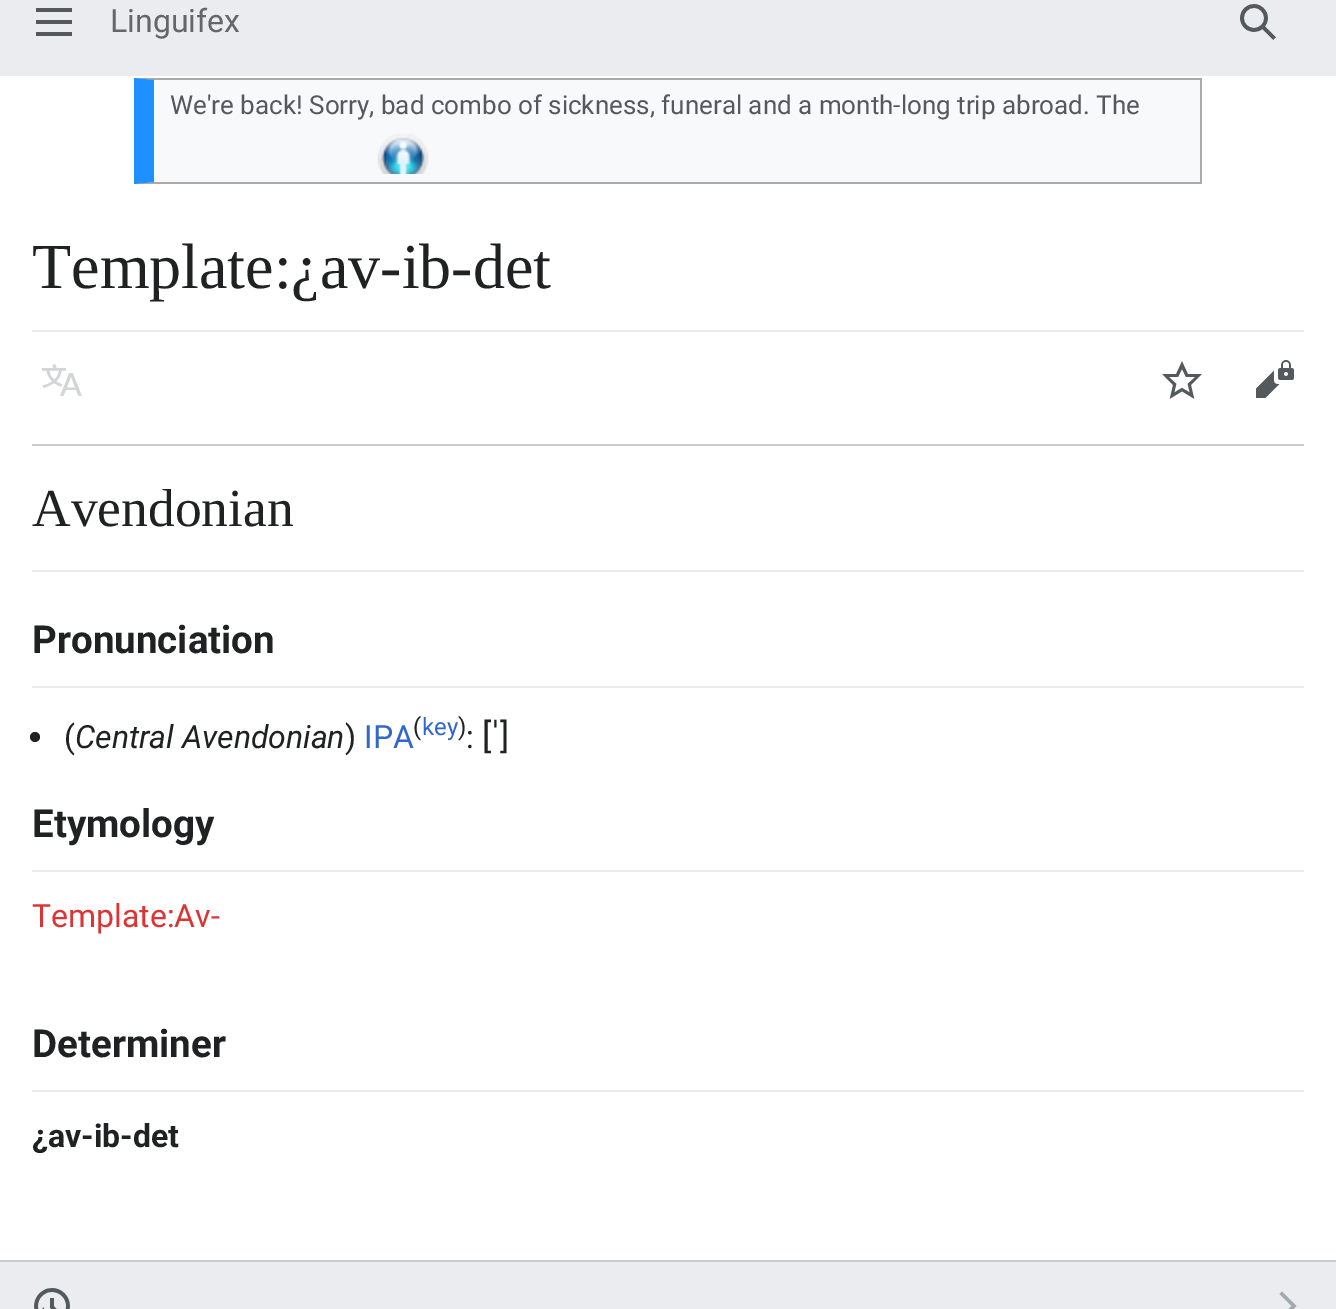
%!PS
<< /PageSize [1336 1309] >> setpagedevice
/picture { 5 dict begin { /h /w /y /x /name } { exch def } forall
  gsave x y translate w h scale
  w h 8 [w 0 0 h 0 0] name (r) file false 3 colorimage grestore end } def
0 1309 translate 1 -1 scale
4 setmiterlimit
0.918 0.925 0.941 setrgbcolor
0 0 1336 1309 rectfill
(img1.rgb) 36 8 36 28 picture
/Roboto-Regular [32 0 0 -32 0 0] selectfont
0.396 0.4 0.408 setrgbcolor
110 32 moveto (Linguifex) show
(img2.rgb) 1240 4 36 36 picture
1 setgray
0 76 1336 1184 rectfill
0.973 0.976 0.98 setrgbcolor
154 80 1046 102 rectfill
0.667 setgray
newpath 134 78 moveto 1202 78 lineto 1200 80 lineto 154 80 lineto closepath fill
1200 78 2 106 rectfill
newpath 1202 184 moveto 134 184 lineto 154 182 lineto 1200 182 lineto closepath fill
0.118 0.565 1 setrgbcolor
newpath 134 184 moveto 134 78 lineto 154 80 lineto 154 182 lineto closepath fill
/Roboto-Regular [26 0 0 -26 0 0] selectfont
0.329 0.349 0.365 setrgbcolor
170 114 moveto (We're back! Sorry, bad combo of sickness, funeral and a month-long trip abroad. The) show
(img3.rgb) 377 133 52 41 picture
/LiberationSerif-Regular [64 0 0 -64 0 0] selectfont
0.125 0.129 0.133 setrgbcolor
32 288 moveto (Template:¿av-ib-det) show
0.918 0.925 0.941 setrgbcolor
32 330 1272 2 rectfill
0.784 0.8 0.82 setrgbcolor
32 444 1272 2 rectfill
(img4.rgb) 42 364 40 32 picture
(img5.rgb) 1162 361 40 38 picture
(img6.rgb) 1256 360 38 38 picture
0.918 0.925 0.941 setrgbcolor
32 570 1272 2 rectfill
/LiberationSerif-Regular [53.5 0 0 -53.5 0 0] selectfont
0.125 0.129 0.133 setrgbcolor
32 526 moveto (Avendonian) show
0.918 0.925 0.941 setrgbcolor
32 686 1272 2 rectfill
/Roboto-Bold [38.5 0 0 -38.5 0 0] selectfont
0.125 0.129 0.133 setrgbcolor
32 653 moveto (Pronunciation) show
/Roboto-Regular [24 0 0 -24 0 0] selectfont
413 735 moveto (\() show
0.2 0.4 0.8 setrgbcolor
422 735 moveto (key) show
0.125 0.129 0.133 setrgbcolor
458 735 moveto (\)) show
/Roboto-Regular [35 0 0 -35 0 0] selectfont
482 748 moveto ([ ]) show
newpath 35 737 5 0 360 arc closepath fill
/Roboto-Regular [32 0 0 -32 0 0] selectfont
64 748 moveto (\() show
/Roboto-Italic [32 0 0 -32 0 0] selectfont
75 748 moveto (Central Avendonian) show
/Roboto-Regular [32 0 0 -32 0 0] selectfont
345 748 moveto (\)) show
0.2 0.4 0.8 setrgbcolor
364 748 moveto (IPA) show
0.125 0.129 0.133 setrgbcolor
466 748 moveto (:) show
/Lato-Regular [35 0 0 -35 0 0] selectfont
491 748 moveto (ˈ) show
0.918 0.925 0.941 setrgbcolor
32 870 1272 2 rectfill
/Roboto-Bold [38.5 0 0 -38.5 0 0] selectfont
0.125 0.129 0.133 setrgbcolor
32 837 moveto (Etymology) show
/Roboto-Regular [32 0 0 -32 0 0] selectfont
0.867 0.2 0.2 setrgbcolor
32 927 moveto (Template:Av-) show
0.918 0.925 0.941 setrgbcolor
32 1090 1272 2 rectfill
/Roboto-Bold [38.5 0 0 -38.5 0 0] selectfont
0.125 0.129 0.133 setrgbcolor
32 1057 moveto (Determiner) show
/Roboto-Bold [32 0 0 -32 0 0] selectfont
32 1147 moveto (¿av-ib-det) show
0.784 0.8 0.82 setrgbcolor
0 1260 1336 2 rectfill
(img7.rgb) 34 1288 36 21 picture
0.635 0.663 0.694 setrgbcolor
newpath 1279.5 1294 moveto 1291.5 1306 lineto 1279.5 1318 lineto 1282 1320.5 lineto 1296.5 1306 lineto 1282 1291.5 lineto closepath fill
showpage
